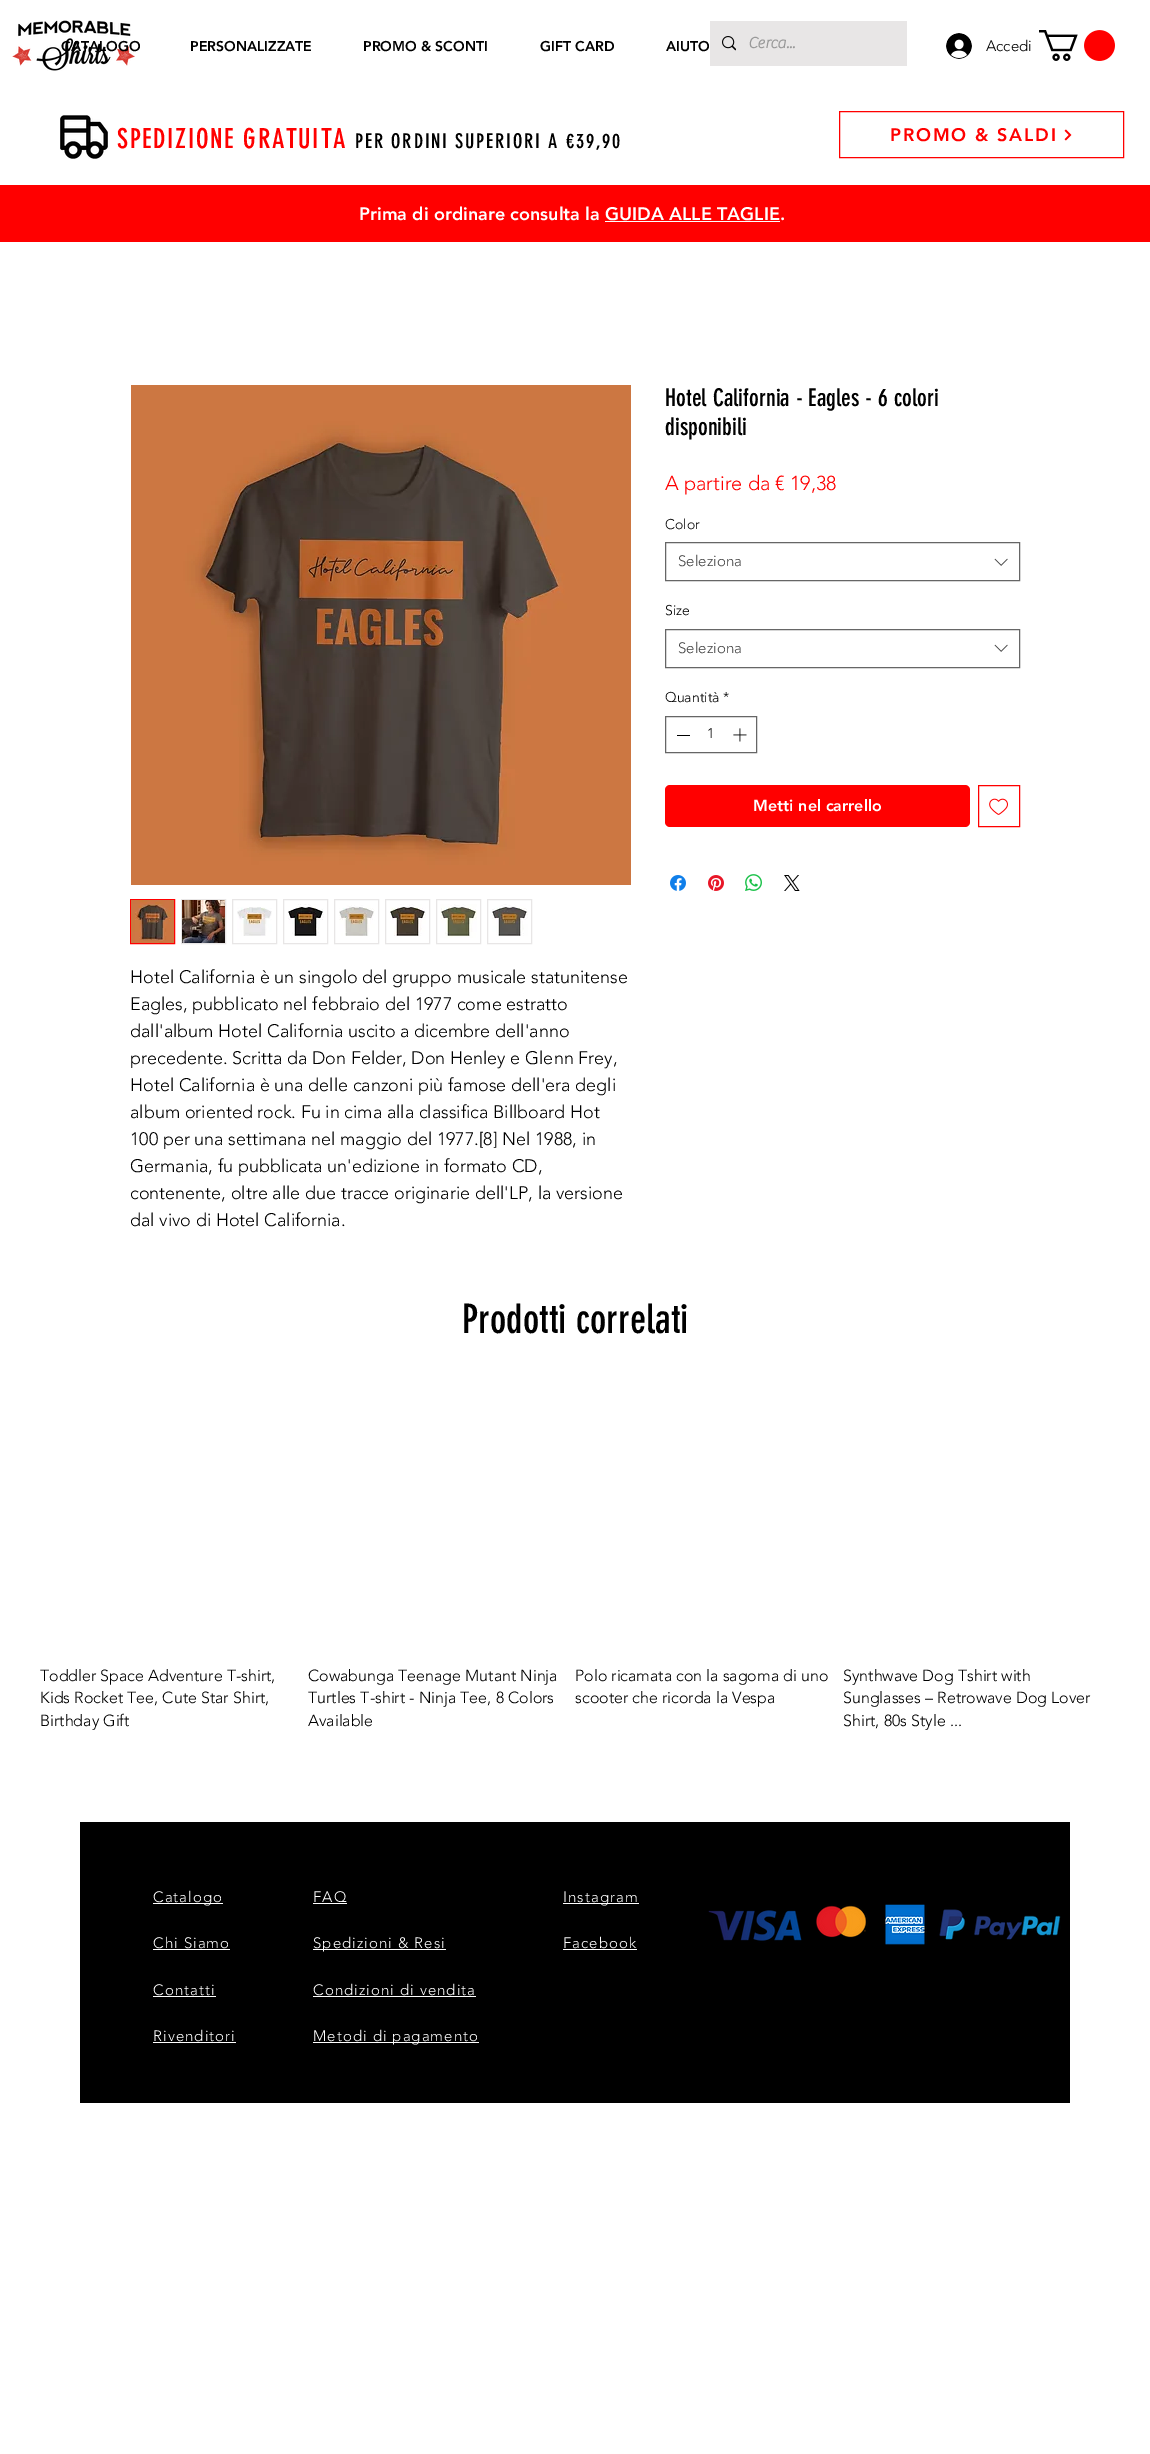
%!PS
<< /PageSize [1150 2454] >> setpagedevice
/roundrect { 5 dict begin { /r /h /w /y /x } { exch def } forall
  x r add y moveto x w add y 2 copy h add r arct x w add y h add x 1 index r arct
  x y h add x y r arct x y 2 copy exch w add exch r arct closepath end } def
/picture { 5 dict begin { /h /w /y /x /name } { exch def } forall
  gsave x y translate w h scale
  w h 8 [w 0 0 h 0 0] name (r) file false 3 colorimage grestore end } def
0 2454 translate 1 -1 scale
4 setmiterlimit
1 setgray
0 0 1150 2454 rectfill
(img1.rgb) 12 20 123 51 picture
0.91 0.902 0.902 setrgbcolor
710 21 197 45 rectfill
(img2.rgb) 722 36 14 15 picture
/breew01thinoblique-Bold [16 0 0 -16 0 0] selectfont
0.6 setgray
748 48 moveto (Cerca...) show
(img3.rgb) 946 33 26 26 picture
/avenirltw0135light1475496-Light [15 0 0 -15 0 0] selectfont
0 setgray
986 51 moveto (Accedi) show
(img4.rgb) 1039 30 76 31 picture
/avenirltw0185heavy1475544-Black [14 0 0 -14 0 0] selectfont
61 51 moveto (CATALOGO) show
190 51 moveto (PERSONALIZZATE) show
363 51 moveto (PROMO & SCONTI) show
540 51 moveto (GIFT CARD) show
666 51 moveto (AIUTO) show
(img5.rgb) 60 115 48 44 picture
/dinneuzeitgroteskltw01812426-Regular [27 0 0 -27 0 0] selectfont
1 0 0 setrgbcolor
117 148 moveto 1.6 0 (SPEDIZIONE GRATUITA) ashow
/dinneuzeitgroteskltw01812426-Regular [20 0 0 -20 0 0] selectfont
0 setgray
355 148 moveto 1.8 0 (PER ORDINI SUPERIORI A €39,90) ashow
1 0 0 setrgbcolor
839.5 111.5 284 46 rectstroke
/avenirltw0185heavy1475544-Black [18 0 0 -18 0 0] selectfont
890 141 moveto 1.8 0 (PROMO & SALDI) ashow
(img6.rgb) 1064 129 8 12 picture
0 185 1150 57 rectfill
1 setgray
359 220 moveto (Prima di ordinare consulta la GUIDA ALLE TAGLIE.) show
605 221 175 1 rectfill
/dinneuzeitgroteskltw01812426-Regular [24 0 0 -24 0 0] selectfont
0 setgray
665 406 moveto (Hotel California - Eagles - 6 colori) show
665 435 moveto (disponibili) show
/avenirltw0135light1475496-Light [20 0 0 -20 0 0] selectfont
1 0 0 setrgbcolor
665 490 moveto (A partire da € 19,38) show
/avenirltw0135light1475496-Light [14 0 0 -14 0 0] selectfont
0 setgray
665 529 moveto (Color) show
0.4 setgray
665.5 542.5 354 38 rectstroke
/avenirltw0135light1475496-Light [15 0 0 -15 0 0] selectfont
0.267 setgray
678 566 moveto (Seleziona) show
(img7.rgb) 994 558 14 8 picture
/avenirltw0135light1475496-Light [14 0 0 -14 0 0] selectfont
0 setgray
665 615 moveto (Size) show
0.4 setgray
665.5 629.5 354 38 rectstroke
/avenirltw0135light1475496-Light [15 0 0 -15 0 0] selectfont
0.267 setgray
678 653 moveto (Seleziona) show
(img7.rgb) 994 644 14 8 picture
/avenirltw0135light1475496-Light [14 0 0 -14 0 0] selectfont
0 setgray
665 702 moveto (Quantità) show
723 702 moveto (*) show
0.4 setgray
665.5 716.5 91 36 rectstroke
0 setgray
677 735 13 1 rectfill
707 738 moveto (1) show
(img8.rgb) 733 728 14 14 picture
1 0 0 setrgbcolor
665 785 305 42 5 roundrect fill
/avenirltw0185heavy1475544-Black [16 0 0 -16 0 0] selectfont
1 setgray
753 811 moveto (Metti nel carrello) show
1 0 0 setrgbcolor
978.5 785.5 41 41 rectstroke
(img9.rgb) 989 798 19 17 picture
(img10.rgb) 670 875 16 16 picture
(img11.rgb) 708 875 16 16 picture
(img12.rgb) 745 874 17 17 picture
(img13.rgb) 784 875 16 16 picture
(img14.rgb) 131 385 500 500 picture
130.5 899.5 44 44 rectstroke
(img15.rgb) 131 900 43 43 picture
0.91 0.902 0.902 setrgbcolor
181.5 899.5 44 44 rectstroke
(img16.rgb) 182 900 43 43 picture
232.5 899.5 44 44 rectstroke
(img17.rgb) 237 907 35 29 picture
283.5 899.5 44 44 rectstroke
(img18.rgb) 288 904 36 32 picture
334.5 899.5 44 44 rectstroke
(img19.rgb) 339 905 36 31 picture
385.5 899.5 44 44 rectstroke
(img20.rgb) 390 904 36 32 picture
436.5 899.5 44 44 rectstroke
(img21.rgb) 440 904 37 34 picture
487.5 899.5 44 44 rectstroke
(img22.rgb) 492 904 36 32 picture
/avenirltw0135light1475496-Light [18 0 0 -18 0 0] selectfont
0 setgray
130 983 moveto (Hotel California è un singolo del gruppo musicale statunitense) show
130 1010 moveto (Eagles, pubblicato nel febbraio del 1977 come estratto) show
130 1037 moveto (dall'album Hotel California uscito a dicembre dell'anno) show
130 1064 moveto (precedente. Scritta da Don Felder, Don Henley e Glenn Frey,) show
130 1091 moveto (Hotel California è una delle canzoni più famose dell'era degli) show
130 1118 moveto (album oriented rock. Fu in cima alla classifica Billboard Hot) show
130 1145 moveto (100 per una settimana nel maggio del 1977.[8] Nel 1988, in) show
130 1172 moveto (Germania, fu pubblicata un'edizione in formato CD,) show
130 1199 moveto (contenente, oltre alle due tracce originarie dell'LP, la versione) show
130 1226 moveto (dal vivo di Hotel California.) show
/dinneuzeitgroteskltw01812426-Regular [40 0 0 -40 0 0] selectfont
462 1333 moveto (Prodotti correlati) show
/avenirltw0135light1475496-Light [16 0 0 -16 0 0] selectfont
40 1681 moveto (Toddler Space Adventure T-shirt,) show
40 1703 moveto (Kids Rocket Tee, Cute Star Shirt,) show
40 1726 moveto (Birthday Gift) show
308 1681 moveto (Cowabunga Teenage Mutant Ninja) show
308 1703 moveto (Turtles T-shirt - Ninja Tee, 8 Colors) show
308 1726 moveto (Available) show
575 1681 moveto (Polo ricamata con la sagoma di uno) show
575 1703 moveto (scooter che ricorda la Vespa) show
843 1681 moveto (Synthwave Dog Tshirt with) show
843 1703 moveto (Sunglasses – Retrowave Dog Lover) show
843 1726 moveto (Shirt, 80s Style ...) show
80 1822 990 281 rectfill
1 setgray
153 1903 70 1 rectfill
/avenirltw0135light1475496-Light [15 0 0 -15 0 0] selectfont
153 1902 moveto 1.05 0 (Catalogo) ashow
153 1948 moveto 1.05 0 (Chi Siamo) ashow
153 1949 77 1 rectfill
153 1995 moveto 1.05 0 (Contatti) ashow
153 1996 63 1 rectfill
153 2041 moveto 1.05 0 (Rivenditori) ashow
153 2042 83 1 rectfill
313 1902 moveto 1.05 0 (FAQ) ashow
313 1903 34 1 rectfill
313 1949 133 1 rectfill
313 1948 moveto 1.05 0 (Spedizioni & Resi) ashow
313 1995 moveto 1.05 0 (Condizioni di vendita) ashow
313 1996 163 1 rectfill
313 2042 166 1 rectfill
313 2041 moveto 1.05 0 (Metodi di pagamento) ashow
563 1903 76 1 rectfill
563 1902 moveto 1.05 0 (Instagram) ashow
563 1948 moveto 1.05 0 (Facebook) ashow
563 1949 74 1 rectfill
(img23.rgb) 708 1904 353 41 picture
showpage
